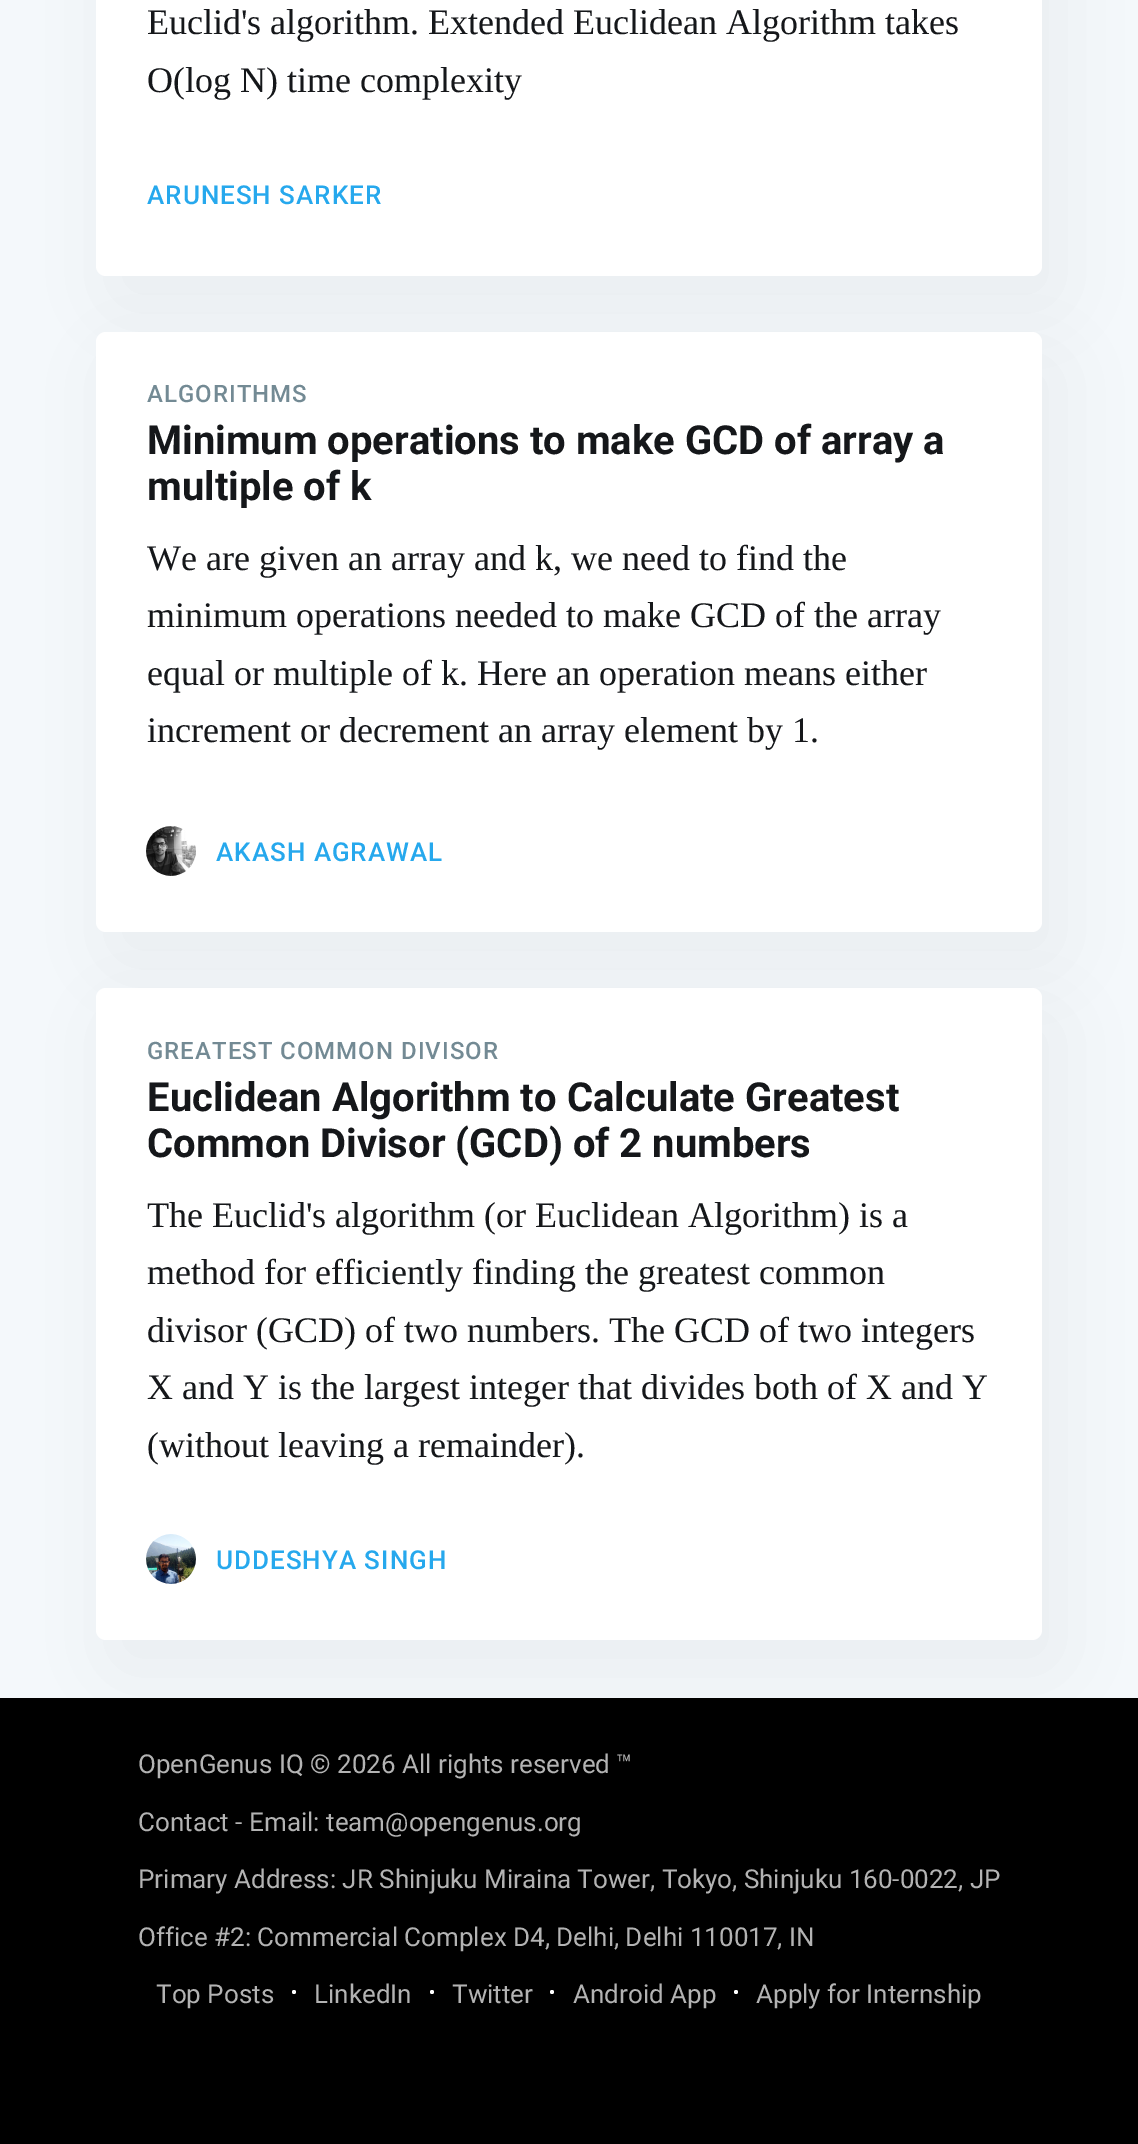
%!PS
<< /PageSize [1138 2144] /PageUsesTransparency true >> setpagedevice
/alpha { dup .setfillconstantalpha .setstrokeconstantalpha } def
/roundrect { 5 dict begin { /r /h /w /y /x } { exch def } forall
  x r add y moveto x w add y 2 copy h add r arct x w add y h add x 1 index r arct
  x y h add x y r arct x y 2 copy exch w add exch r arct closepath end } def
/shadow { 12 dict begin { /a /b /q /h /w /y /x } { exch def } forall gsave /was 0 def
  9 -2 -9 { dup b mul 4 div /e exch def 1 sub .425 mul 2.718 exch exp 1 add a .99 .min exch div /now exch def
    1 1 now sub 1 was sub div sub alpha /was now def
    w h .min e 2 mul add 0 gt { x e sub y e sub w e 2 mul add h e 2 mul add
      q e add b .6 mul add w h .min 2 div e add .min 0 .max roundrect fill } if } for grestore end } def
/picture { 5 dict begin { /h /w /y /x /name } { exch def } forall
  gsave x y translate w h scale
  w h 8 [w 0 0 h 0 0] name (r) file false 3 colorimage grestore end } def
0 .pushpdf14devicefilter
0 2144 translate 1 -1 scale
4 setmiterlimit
0.957 0.973 0.984 setrgbcolor
0 0 1138 2144 rectfill
0.153 0.173 0.192 setrgbcolor
112 -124 946 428 10 38 0.06 shadow
1 setgray
96 -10 946 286 10 roundrect fill
/LiberationSerif-Regular [36 0 0 -36 0 0] selectfont
0.082 0.09 0.102 setrgbcolor
147 34 moveto (Euclid's algorithm. Extended Euclidean Algorithm takes) show
147 92 moveto (O\(log N\) time complexity) show
/Roboto-Medium [26 0 0 -26 0 0] selectfont
0.149 0.659 0.929 setrgbcolor
147 204 moveto 1 0 (ARUNESH SARKER) ashow
0.153 0.173 0.192 setrgbcolor
112 360 946 600 10 38 0.06 shadow
1 setgray
96 332 946 600 10 roundrect fill
/Roboto-Medium [24 0 0 -24 0 0] selectfont
0.451 0.541 0.58 setrgbcolor
147 402 moveto 1 0 (ALGORITHMS) ashow
/Roboto-Bold [40 0 0 -40 0 0] selectfont
0.082 0.09 0.102 setrgbcolor
147 454 moveto (Minimum operations to make GCD of array a) show
147 500 moveto (multiple of k) show
/LiberationSerif-Regular [36 0 0 -36 0 0] selectfont
147 570 moveto (We are given an array and k, we need to find the) show
147 627 moveto (minimum operations needed to make GCD of the array) show
147 685 moveto (equal or multiple of k. Here an operation means either) show
147 742 moveto (increment or decrement an array element by 1.) show
(img1.rgb) 146 826 50 50 picture
/Roboto-Medium [26 0 0 -26 0 0] selectfont
0.149 0.659 0.929 setrgbcolor
216 861 moveto 1 0 (AKASH AGRAWAL) ashow
0 setgray
0 1698 1138 446 rectfill
0.153 0.173 0.192 setrgbcolor
112 1016 946 652 10 38 0.06 shadow
1 setgray
96 988 946 652 10 roundrect fill
/Roboto-Medium [24 0 0 -24 0 0] selectfont
0.451 0.541 0.58 setrgbcolor
147 1059 moveto 1 0 (GREATEST COMMON DIVISOR) ashow
/Roboto-Bold [40 0 0 -40 0 0] selectfont
0.082 0.09 0.102 setrgbcolor
147 1111 moveto (Euclidean Algorithm to Calculate Greatest) show
147 1157 moveto (Common Divisor \(GCD\) of 2 numbers) show
/LiberationSerif-Regular [36 0 0 -36 0 0] selectfont
147 1227 moveto (The Euclid's algorithm \(or Euclidean Algorithm\) is a) show
147 1284 moveto (method for efficiently finding the greatest common) show
147 1342 moveto (divisor \(GCD\) of two numbers. The GCD of two integers) show
147 1399 moveto (X and Y is the largest integer that divides both of X and Y) show
147 1457 moveto (\(without leaving a remainder\).) show
(img2.rgb) 146 1534 50 50 picture
/Roboto-Medium [26 0 0 -26 0 0] selectfont
0.149 0.659 0.929 setrgbcolor
216 1569 moveto 1 0 (UDDESHYA SINGH) ashow
/Roboto-Regular [26 0 0 -26 0 0] selectfont
0.702 setgray
138 1773 moveto (OpenGenus IQ © 2026 All rights reserved ™) show
138 1831 moveto (Contact - Email: team@opengenus.org) show
138 1888 moveto (Primary Address: JR Shinjuku Miraina Tower, Tokyo, Shinjuku 160-0022, JP) show
138 1946 moveto (Office #2: Commercial Complex D4, Delhi, Delhi 110017, IN) show
156 2003 moveto (Top Posts) show
1 setgray
newpath 294 1992 2 0 360 arc closepath fill
0.702 setgray
314 2003 moveto (LinkedIn) show
1 setgray
newpath 432 1992 2 0 360 arc closepath fill
0.702 setgray
452 2003 moveto (Twitter) show
1 setgray
newpath 552 1992 2 0 360 arc closepath fill
0.702 setgray
573 2003 moveto (Android App) show
1 setgray
newpath 736 1992 2 0 360 arc closepath fill
0.702 setgray
756 2003 moveto (Apply for Internship) show
.poppdf14devicefilter showpage
